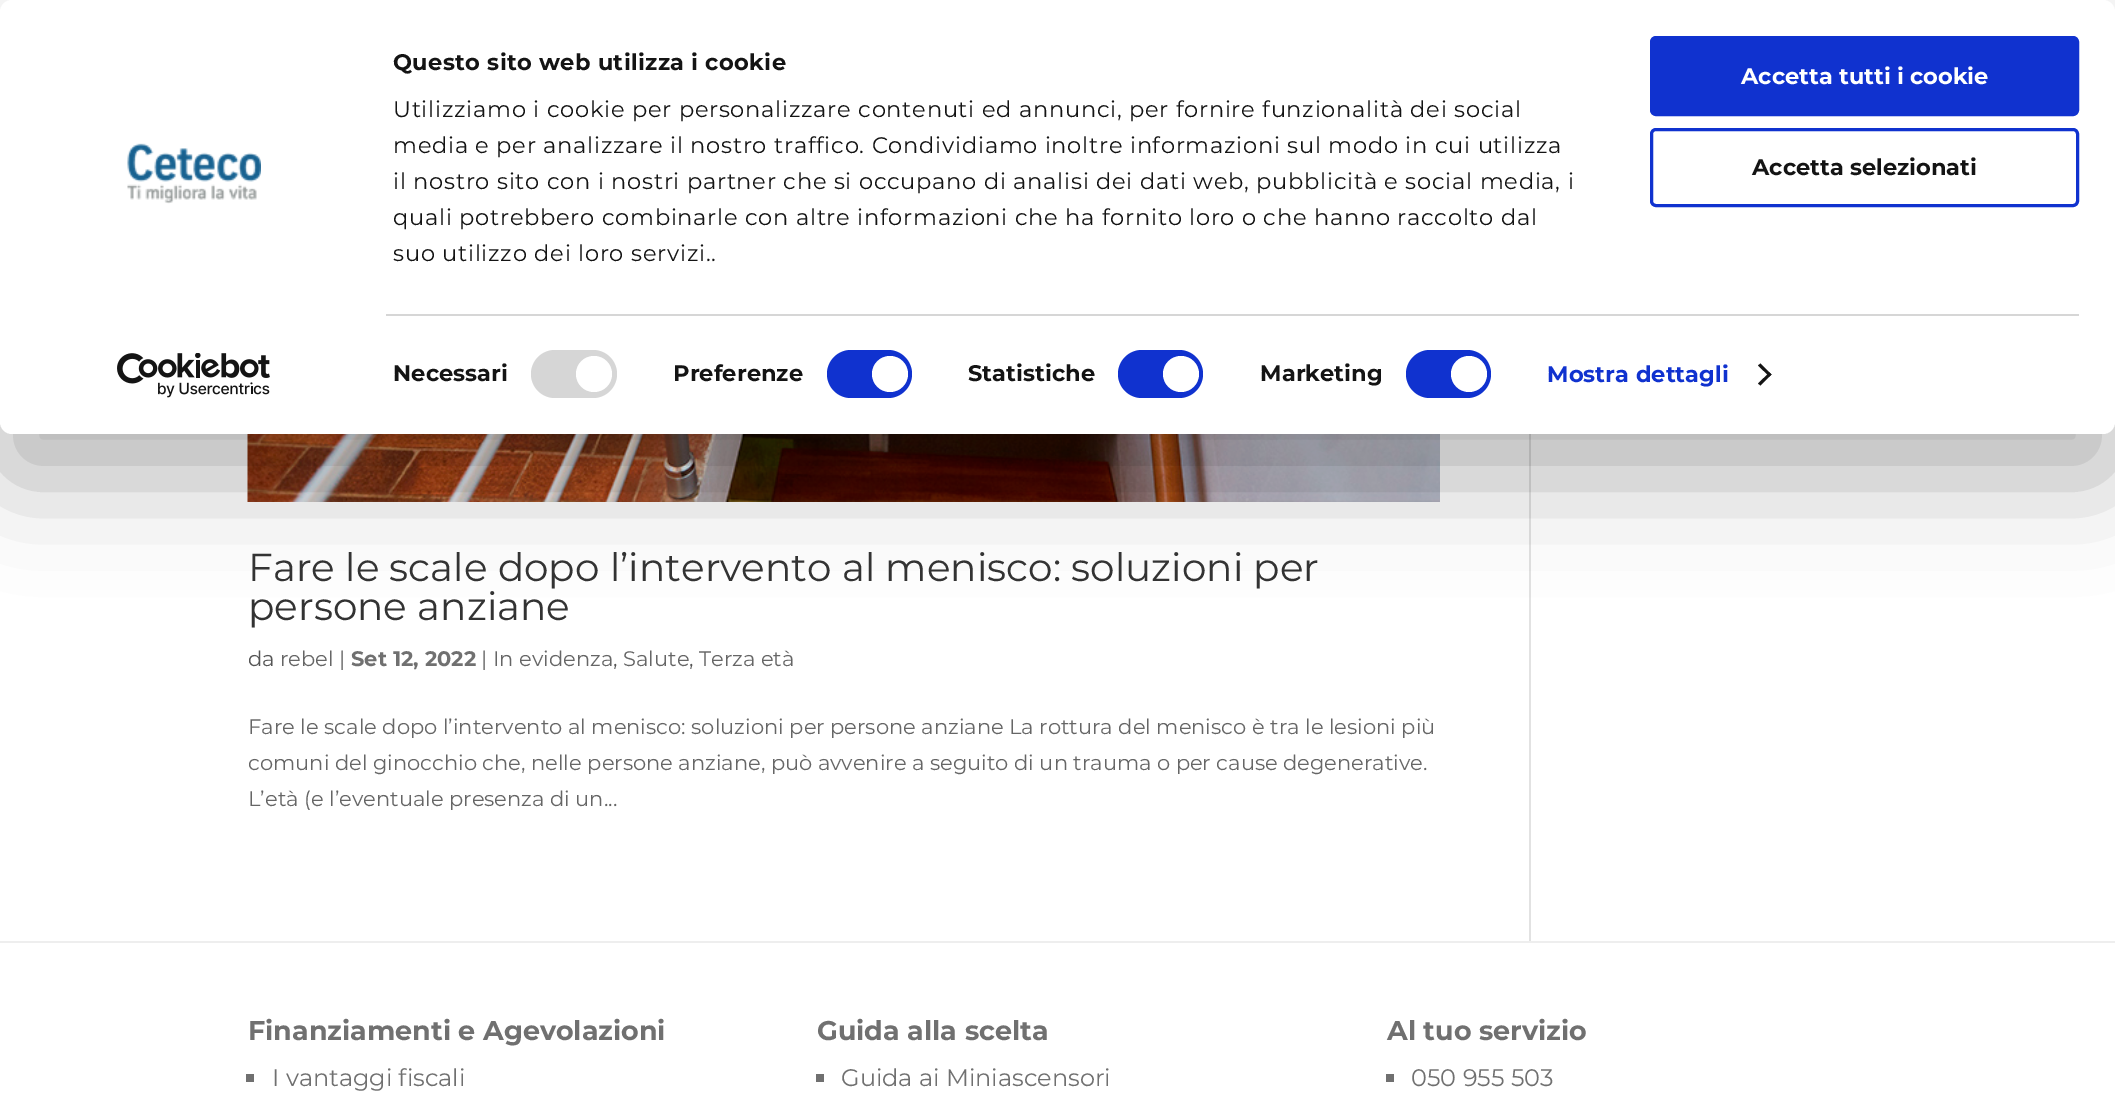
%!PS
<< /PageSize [2115 1112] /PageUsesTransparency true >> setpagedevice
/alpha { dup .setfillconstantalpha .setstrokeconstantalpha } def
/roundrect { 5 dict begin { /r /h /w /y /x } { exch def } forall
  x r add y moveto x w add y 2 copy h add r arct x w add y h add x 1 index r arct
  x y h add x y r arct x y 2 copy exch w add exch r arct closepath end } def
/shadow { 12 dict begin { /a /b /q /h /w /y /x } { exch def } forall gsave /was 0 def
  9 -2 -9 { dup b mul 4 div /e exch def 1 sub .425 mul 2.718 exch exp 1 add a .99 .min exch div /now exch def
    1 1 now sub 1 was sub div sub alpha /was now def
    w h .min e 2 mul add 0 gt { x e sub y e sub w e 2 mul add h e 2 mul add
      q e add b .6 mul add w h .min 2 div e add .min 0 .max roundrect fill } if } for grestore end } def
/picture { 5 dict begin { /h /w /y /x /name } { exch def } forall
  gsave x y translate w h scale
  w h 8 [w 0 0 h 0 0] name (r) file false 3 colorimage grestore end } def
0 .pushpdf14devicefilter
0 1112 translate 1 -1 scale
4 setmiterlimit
1 setgray
0 0 2115 1112 rectfill
(img3.rgb) 247 434 1193 68 picture
0.886 setgray
1529 434 2 507 rectfill
0 setgray
0 45 2115 434 12 52.5 0.3 shadow
1 setgray
0 0 2115 434 12 roundrect fill
/Montserrat-Bold [22.5 0 0 -22.5 0 0] selectfont
0.078 setgray
393 70 moveto 0.4 0 (Questo sito web utilizza i cookie) ashow
/Montserrat-Regular [22.5 0 0 -22.5 0 0] selectfont
393 117 moveto 0.75 0 (Utilizziamo i cookie per personalizzare contenuti ed annunci, per fornire funzionalità dei social) ashow
393 153 moveto 0.75 0 (media e per analizzare il nostro traffico. Condividiamo inoltre informazioni sul modo in cui utilizza) ashow
393 189 moveto 0.75 0 (il nostro sito con i nostri partner che si occupano di analisi dei dati web, pubblicità e social media, i) ashow
393 225 moveto 0.75 0 (quali potrebbero combinarle con altre informazioni che ha fornito loro o che hanno raccolto dal) ashow
393 261 moveto 0.75 0 (suo utilizzo dei loro servizi..) ashow
0.839 setgray
386 314 1693 2 rectfill
/Montserrat-Bold [22.5 0 0 -22.5 0 0] selectfont
0.078 setgray
393 381 moveto 0.1 0 (Necessari) ashow
0.839 setgray
531 350 86 48 24 roundrect fill
1 setgray
newpath 594 374 18 0 360 arc closepath fill
0.078 setgray
673 381 moveto 0.1 0 (Preferenze) ashow
0.063 0.196 0.812 setrgbcolor
827 350 85 48 24 roundrect fill
1 setgray
newpath 890 374 18 0 360 arc closepath fill
0.078 setgray
968 381 moveto 0.1 0 (Statistiche) ashow
0.063 0.196 0.812 setrgbcolor
1118 350 85 48 24 roundrect fill
1 setgray
newpath 1181 374 18 0 360 arc closepath fill
0.078 setgray
1260 381 moveto 0.1 0 (Marketing) ashow
0.063 0.196 0.812 setrgbcolor
1406 350 85 48 24 roundrect fill
1 setgray
newpath 1469 374 18 0 360 arc closepath fill
0.063 0.196 0.812 setrgbcolor
1547 382 moveto 0.1 0 (Mostra dettagli) ashow
0.078 setgray
newpath 1760.5 363.5 moveto 1771.5 374.5 lineto 1769.5 376.5 lineto 1758 365.5 lineto closepath fill
newpath 1769.5 372.5 moveto 1771.5 374.5 lineto 1760.5 385.5 lineto 1758 383.5 lineto closepath fill
0.063 0.196 0.812 setrgbcolor
1651.5 37.5 426 77 4.5 roundrect gsave fill grestore
3 setlinewidth
stroke
1 setgray
1741 84 moveto (Accetta tutti i cookie) show
0.063 0.196 0.812 setrgbcolor
1651.5 129.5 426 76 4.5 roundrect stroke
0.078 setgray
1752 175 moveto (Accetta selezionati) show
(img1.rgb) 127 143 134 61 picture
(img2.rgb) 117 353 153 45 picture
/Montserrat-Regular [39 0 0 -39 0 0] selectfont
0.2 setgray
248 581 moveto (Fare le scale dopo l’intervento al menisco: soluzioni per) show
248 620 moveto (persone anziane) show
/Montserrat-Regular [21 0 0 -21 0 0] selectfont
0.333 setgray
248 666 moveto (da) show
0.4 setgray
280 666 moveto (rebel) show
0.333 setgray
339 666 moveto (|) show
/Montserrat-Bold [21 0 0 -21 0 0] selectfont
0.439 setgray
351 666 moveto (Set 12, 2022) show
/Montserrat-Regular [21 0 0 -21 0 0] selectfont
0.333 setgray
481 666 moveto (|) show
0.4 setgray
493 666 moveto (In evidenza) show
0.333 setgray
613 666 moveto (,) show
0.4 setgray
623 666 moveto (Salute) show
0.333 setgray
689 666 moveto (,) show
0.4 setgray
699 666 moveto (Terza età) show
248 734 moveto (Fare le scale dopo l’intervento al menisco: soluzioni per persone anziane La rottura del menisco è tra le lesioni più) show
248 770 moveto (comuni del ginocchio che, nelle persone anziane, può avvenire a seguito di un trauma o per cause degenerative.) show
248 806 moveto (L’età \(e l’eventuale presenza di un...) show
0.933 setgray
0 941 2115 2 rectfill
/Montserrat-Bold [27 0 0 -27 0 0] selectfont
0.439 setgray
248 1040 moveto (Finanziamenti e Agevolazioni) show
246 1074 8 8 rectfill
/Montserrat-Regular [24 0 0 -24 0 0] selectfont
272 1086 moveto (I vantaggi fiscali) show
/Montserrat-Bold [27 0 0 -27 0 0] selectfont
817 1040 moveto (Guida alla scelta) show
816 1074 8 8 rectfill
/Montserrat-Regular [24 0 0 -24 0 0] selectfont
841 1086 moveto (Guida ai Miniascensori) show
/Montserrat-Bold [27 0 0 -27 0 0] selectfont
1387 1040 moveto (Al tuo servizio) show
1386 1074 8 8 rectfill
/Montserrat-Regular [24 0 0 -24 0 0] selectfont
1411 1086 moveto (050 955 503) show
.poppdf14devicefilter showpage
